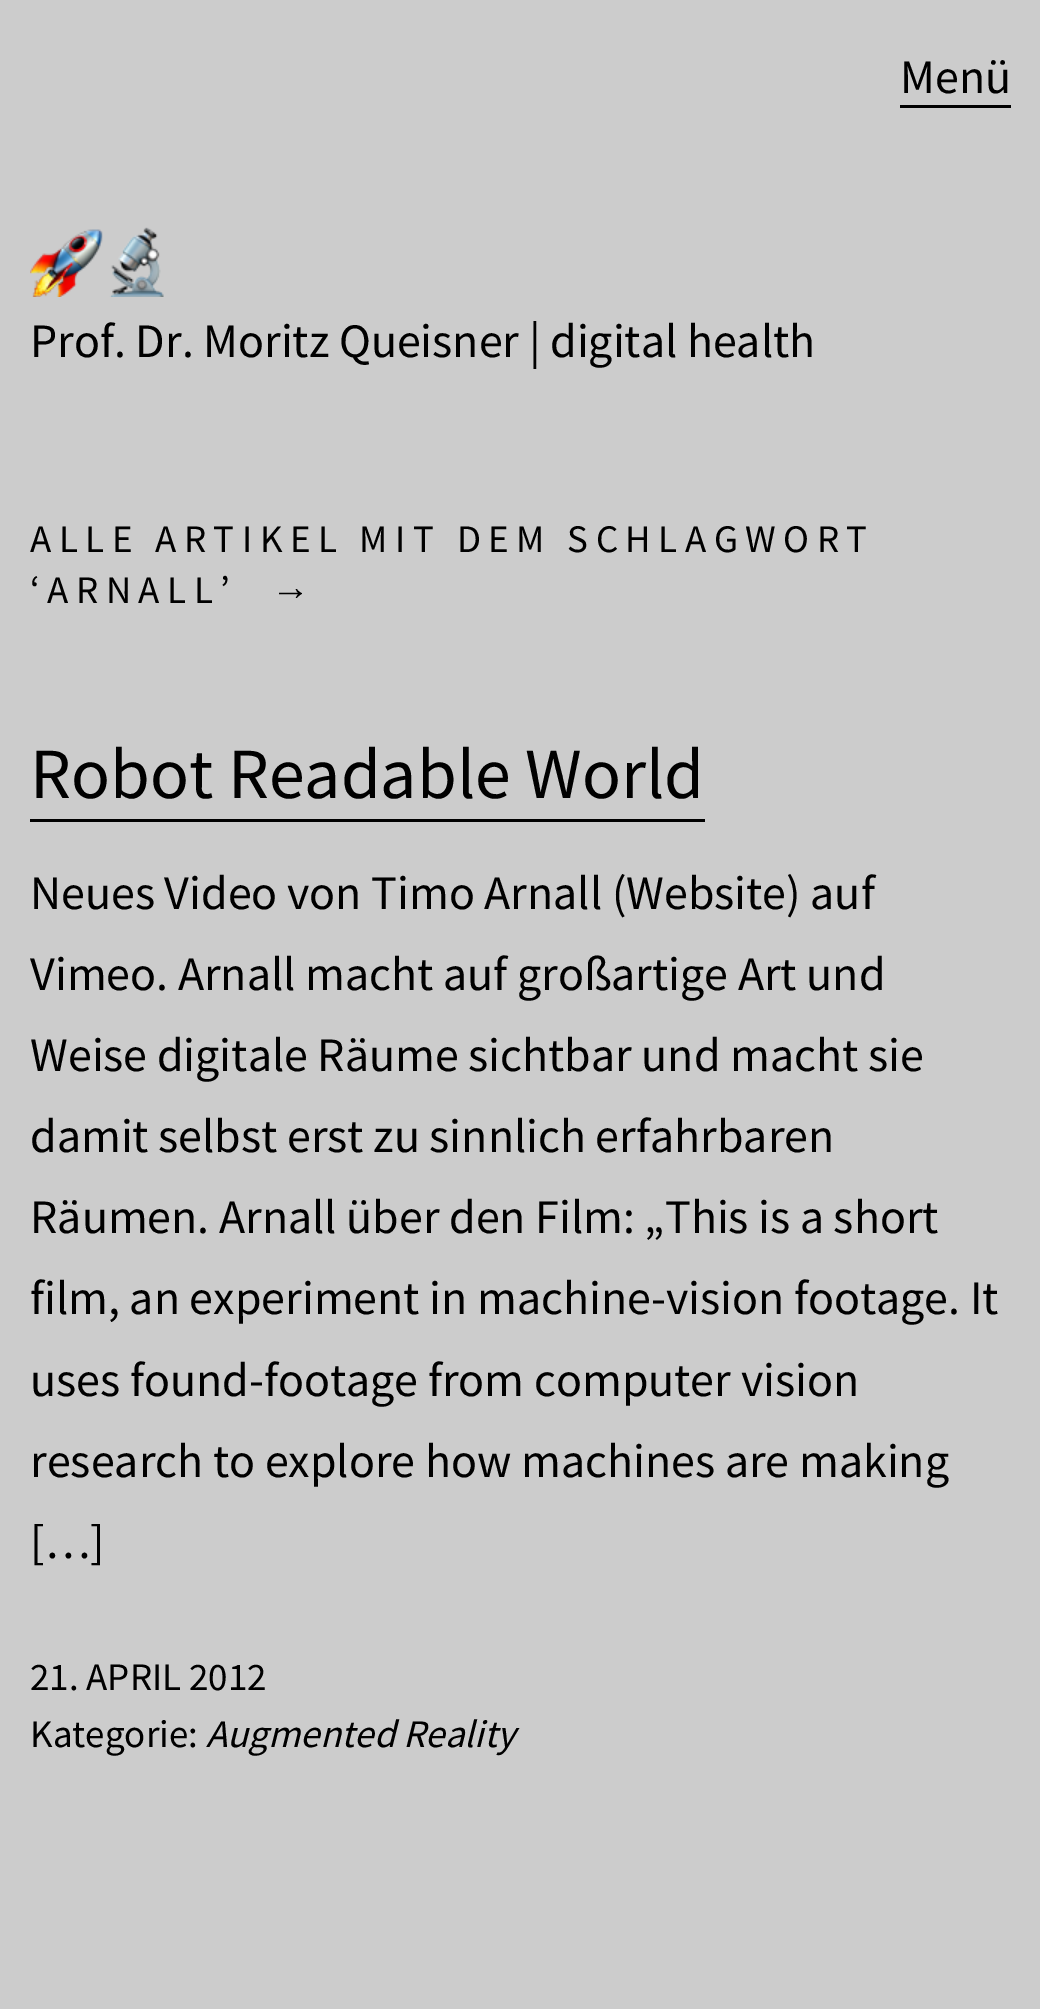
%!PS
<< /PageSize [1040 2009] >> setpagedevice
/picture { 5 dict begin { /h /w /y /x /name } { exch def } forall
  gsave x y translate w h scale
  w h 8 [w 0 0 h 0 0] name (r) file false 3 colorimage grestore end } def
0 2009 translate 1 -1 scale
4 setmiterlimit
0.8 setgray
0 0 1040 2009 rectfill
0 setgray
900 105 111 3 rectfill
/SourceSansPro-Regular [48 0 0 -48 0 0] selectfont
900 93 moveto (Menü) show
(img1.rgb) 30 227 134 70 picture
30 357 moveto (Prof. Dr. Moritz Queisner | digital health) show
/SourceSansPro-Regular [39 0 0 -39 0 0] selectfont
30 552 moveto 7.5 0 (ALLE ARTIKEL MIT DEM SCHLAGWORT) ashow
30 603 moveto 7.5 0 (‘ARNALL’) ashow
/LiberationSans-Regular [39 0 0 -39 0 0] selectfont
271 600 moveto 7.5 0 (→) ashow
/SourceSansPro-Regular [72 0 0 -72 0 0] selectfont
30 798 moveto (Robot Readable World) show
30 819 675 3 rectfill
/SourceSansPro-Regular [48 0 0 -48 0 0] selectfont
30 909 moveto (Neues Video von Timo Arnall \(Website\) auf) show
30 990 moveto (Vimeo. Arnall macht auf großartige Art und) show
30 1071 moveto (Weise digitale Räume sichtbar und macht sie) show
30 1152 moveto (damit selbst erst zu sinnlich erfahrbaren) show
30 1233 moveto (Räumen. Arnall über den Film: „This is a short) show
30 1314 moveto (film, an experiment in machine-vision footage. It) show
30 1396 moveto (uses found-footage from computer vision) show
30 1477 moveto (research to explore how machines are making) show
30 1558 moveto ([…]) show
/SourceSansPro-Regular [39 0 0 -39 0 0] selectfont
30 1690 moveto (21. APRIL 2012) show
30 1747 moveto (Kategorie:) show
/SourceSansPro-Italic [39 0 0 -39 0 0] selectfont
206 1747 moveto (Augmented Reality) show
showpage
